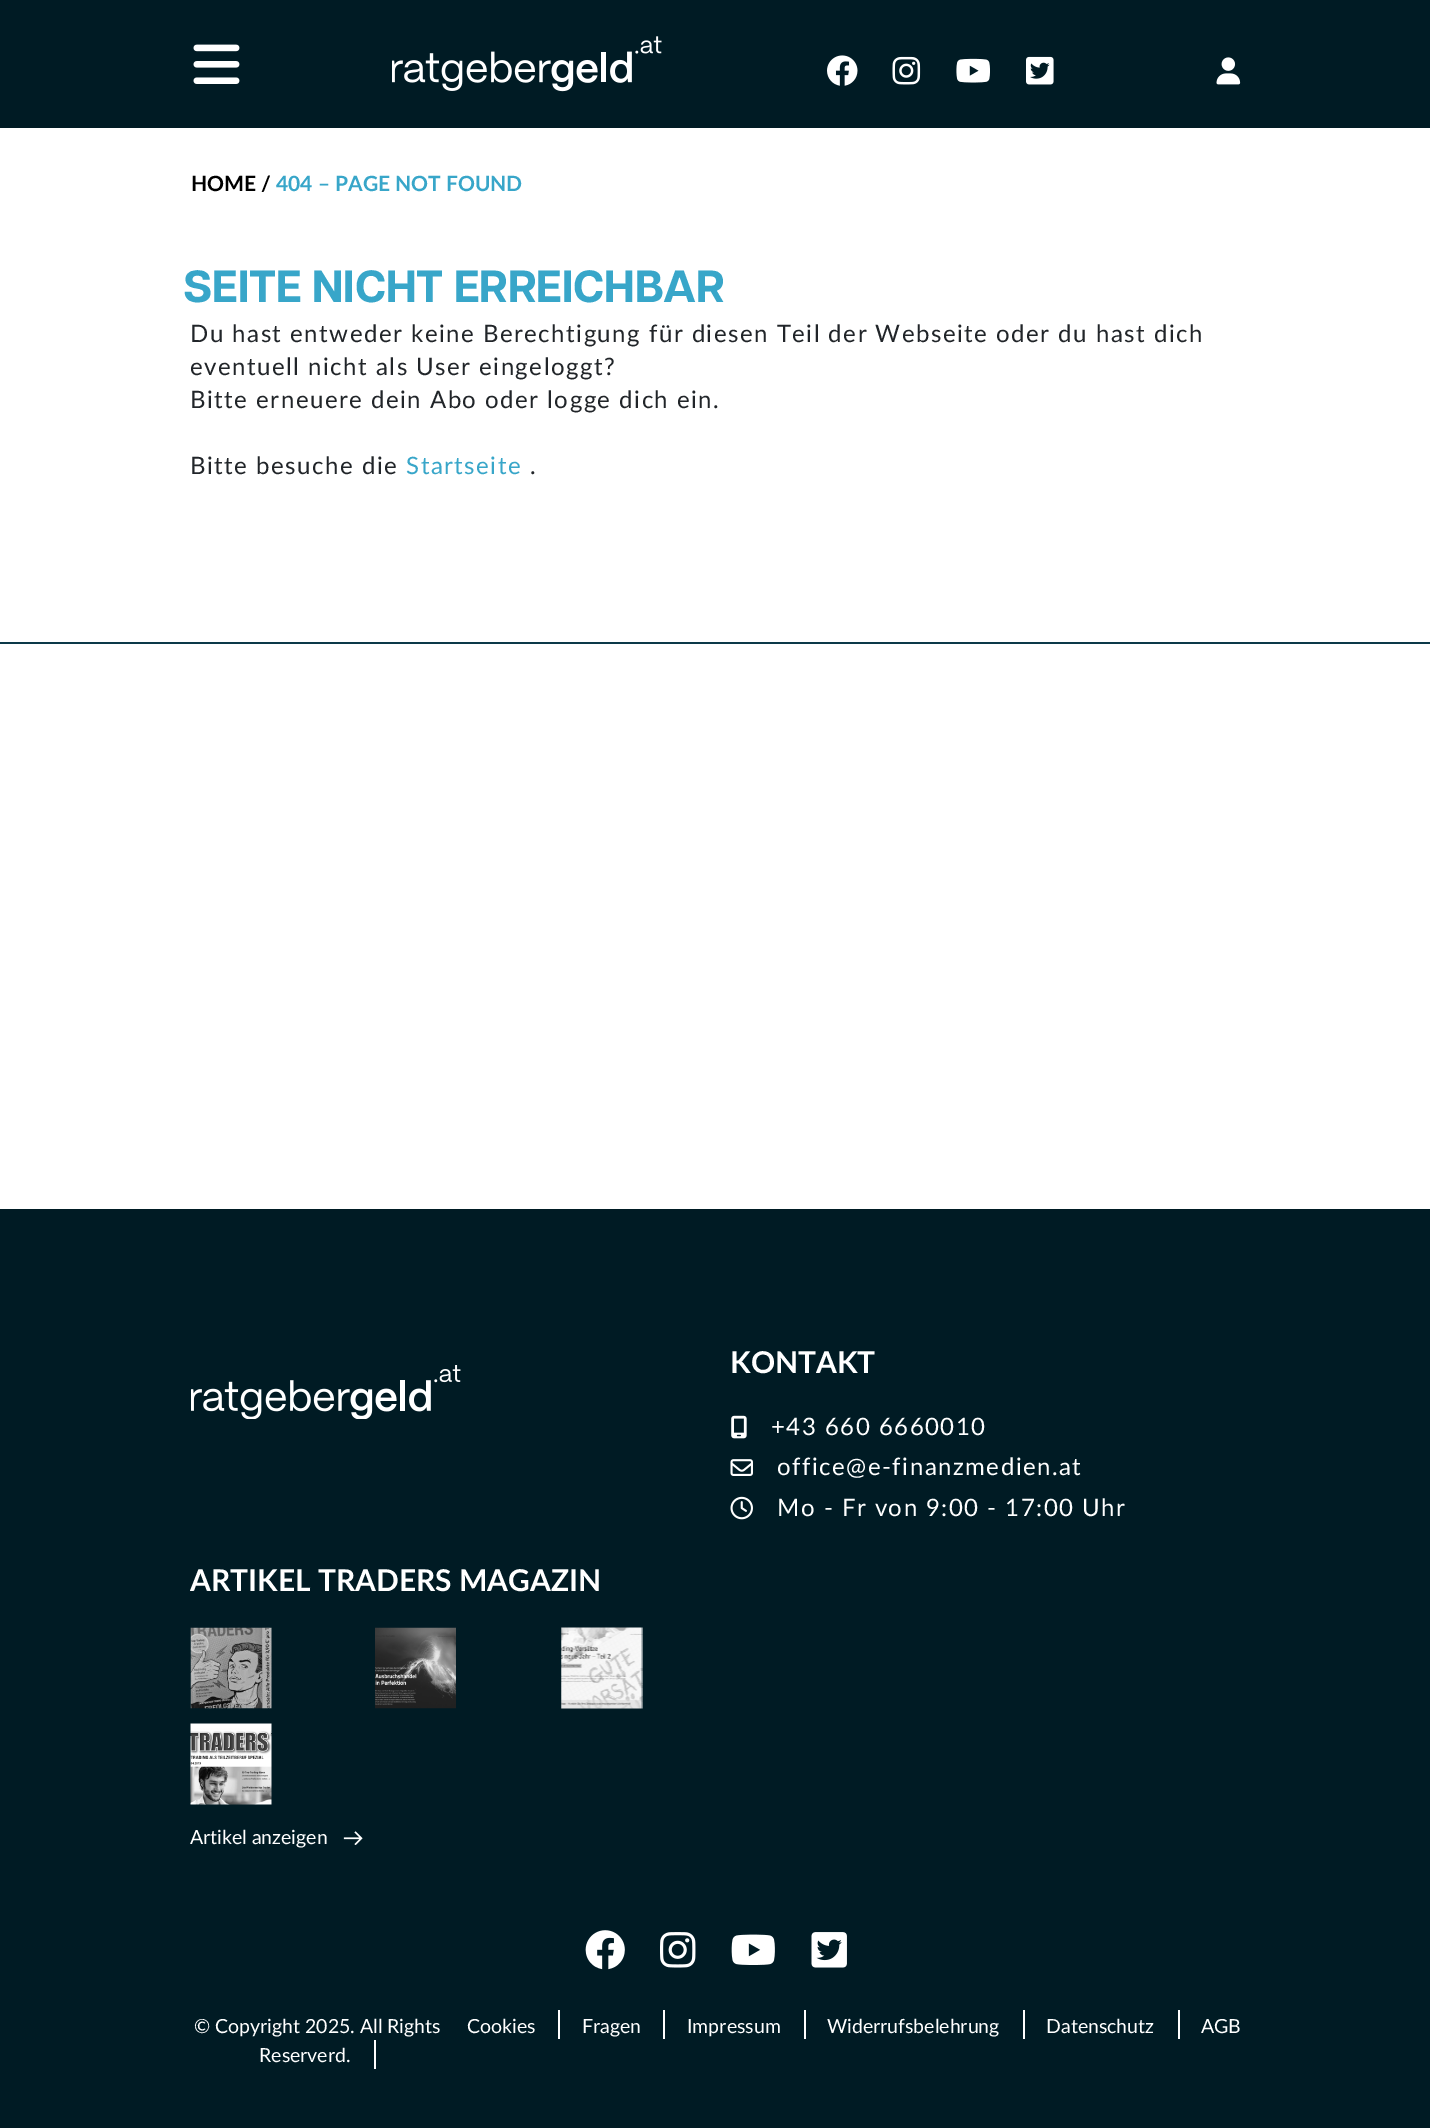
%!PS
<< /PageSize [1430 2128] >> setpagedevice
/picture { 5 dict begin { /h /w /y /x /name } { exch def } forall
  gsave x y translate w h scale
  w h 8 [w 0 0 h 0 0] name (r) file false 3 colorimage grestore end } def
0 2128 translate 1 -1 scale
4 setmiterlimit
1 setgray
0 0 1430 2128 rectfill
0 0.106 0.141 setrgbcolor
0 0 1430 128 rectfill
(img1.rgb) 193 44 47 40 picture
(img2.rgb) 392 36 270 56 picture
(img3.rgb) 827 55 31 31 picture
(img4.rgb) 892 56 29 29 picture
(img5.rgb) 956 58 34 25 picture
(img6.rgb) 1026 56 28 29 picture
(img7.rgb) 1216 57 25 28 picture
0.047 0.224 0.282 setrgbcolor
0 642 1430 2 rectfill
/Lato-Bold [21 0 0 -21 0 0] selectfont
0 setgray
191 191 moveto (HOME) show
261 191 moveto (/) show
0.22 0.651 0.788 setrgbcolor
276 191 moveto (404 – PAGE NOT FOUND) show
/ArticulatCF-Bold [45 0 0 -45 0 0] selectfont
183 302 moveto (SEITE NICHT ERREICHBAR) show
/Lato-Regular [24 0 0 -24 0 0] selectfont
0.129 0.145 0.161 setrgbcolor
190 342 moveto 1.5 0 (Du hast entweder keine Berechtigung für diesen Teil der Webseite oder du hast dich) ashow
190 375 moveto 1.5 0 (eventuell nicht als User eingeloggt?) ashow
190 408 moveto 1.5 0 (Bitte erneuere dein Abo oder logge dich ein.) ashow
190 474 moveto 1.5 0 (Bitte besuche die) ashow
0.22 0.651 0.788 setrgbcolor
406 474 moveto 1.5 0 (Startseite) ashow
0.129 0.145 0.161 setrgbcolor
530 474 moveto 1.5 0 (.) ashow
0 0.106 0.141 setrgbcolor
0 1209 1430 919 rectfill
(img8.rgb) 191 1365 270 54 picture
/Lato-Bold [30 0 0 -30 0 0] selectfont
1 setgray
730 1373 moveto (KONTAKT) show
(img9.rgb) 731 1415 16 24 picture
/Lato-Regular [24 0 0 -24 0 0] selectfont
771 1435 moveto 1.5 0 (+43 660 6660010) ashow
(img10.rgb) 730 1459 23 17 picture
777 1475 moveto 1.5 0 (office@e-finanzmedien.at) ashow
(img11.rgb) 730 1496 23 24 picture
777 1516 moveto 1.5 0 (Mo - Fr von 9:00 - 17:00 Uhr) ashow
/Lato-Bold [30 0 0 -30 0 0] selectfont
190 1591 moveto (ARTIKEL TRADERS MAGAZIN) show
(img12.rgb) 190 1627 82 82 picture
(img13.rgb) 375 1627 81 82 picture
(img14.rgb) 561 1627 82 82 picture
(img15.rgb) 190 1723 82 82 picture
/Lato-Regular [19.5 0 0 -19.5 0 0] selectfont
190 1844 moveto (Artikel anzeigen) show
(img16.rgb) 343 1831 20 14 picture
(img17.rgb) 585 1930 40 40 picture
(img18.rgb) 660 1932 36 36 picture
(img19.rgb) 731 1934 44 31 picture
(img20.rgb) 811 1932 36 36 picture
194 2033 moveto (© Copyright 2025. All Rights) show
259 2062 moveto (Reserverd.) show
374 2040 2 29 rectfill
467 2033 moveto (Cookies) show
558 2010 2 29 rectfill
582 2033 moveto (Fragen) show
663 2010 2 29 rectfill
687 2033 moveto (Impressum) show
804 2010 2 29 rectfill
827 2033 moveto (Widerrufsbelehrung) show
1023 2010 2 29 rectfill
1046 2033 moveto (Datenschutz) show
1178 2010 2 29 rectfill
1201 2033 moveto (AGB) show
showpage
